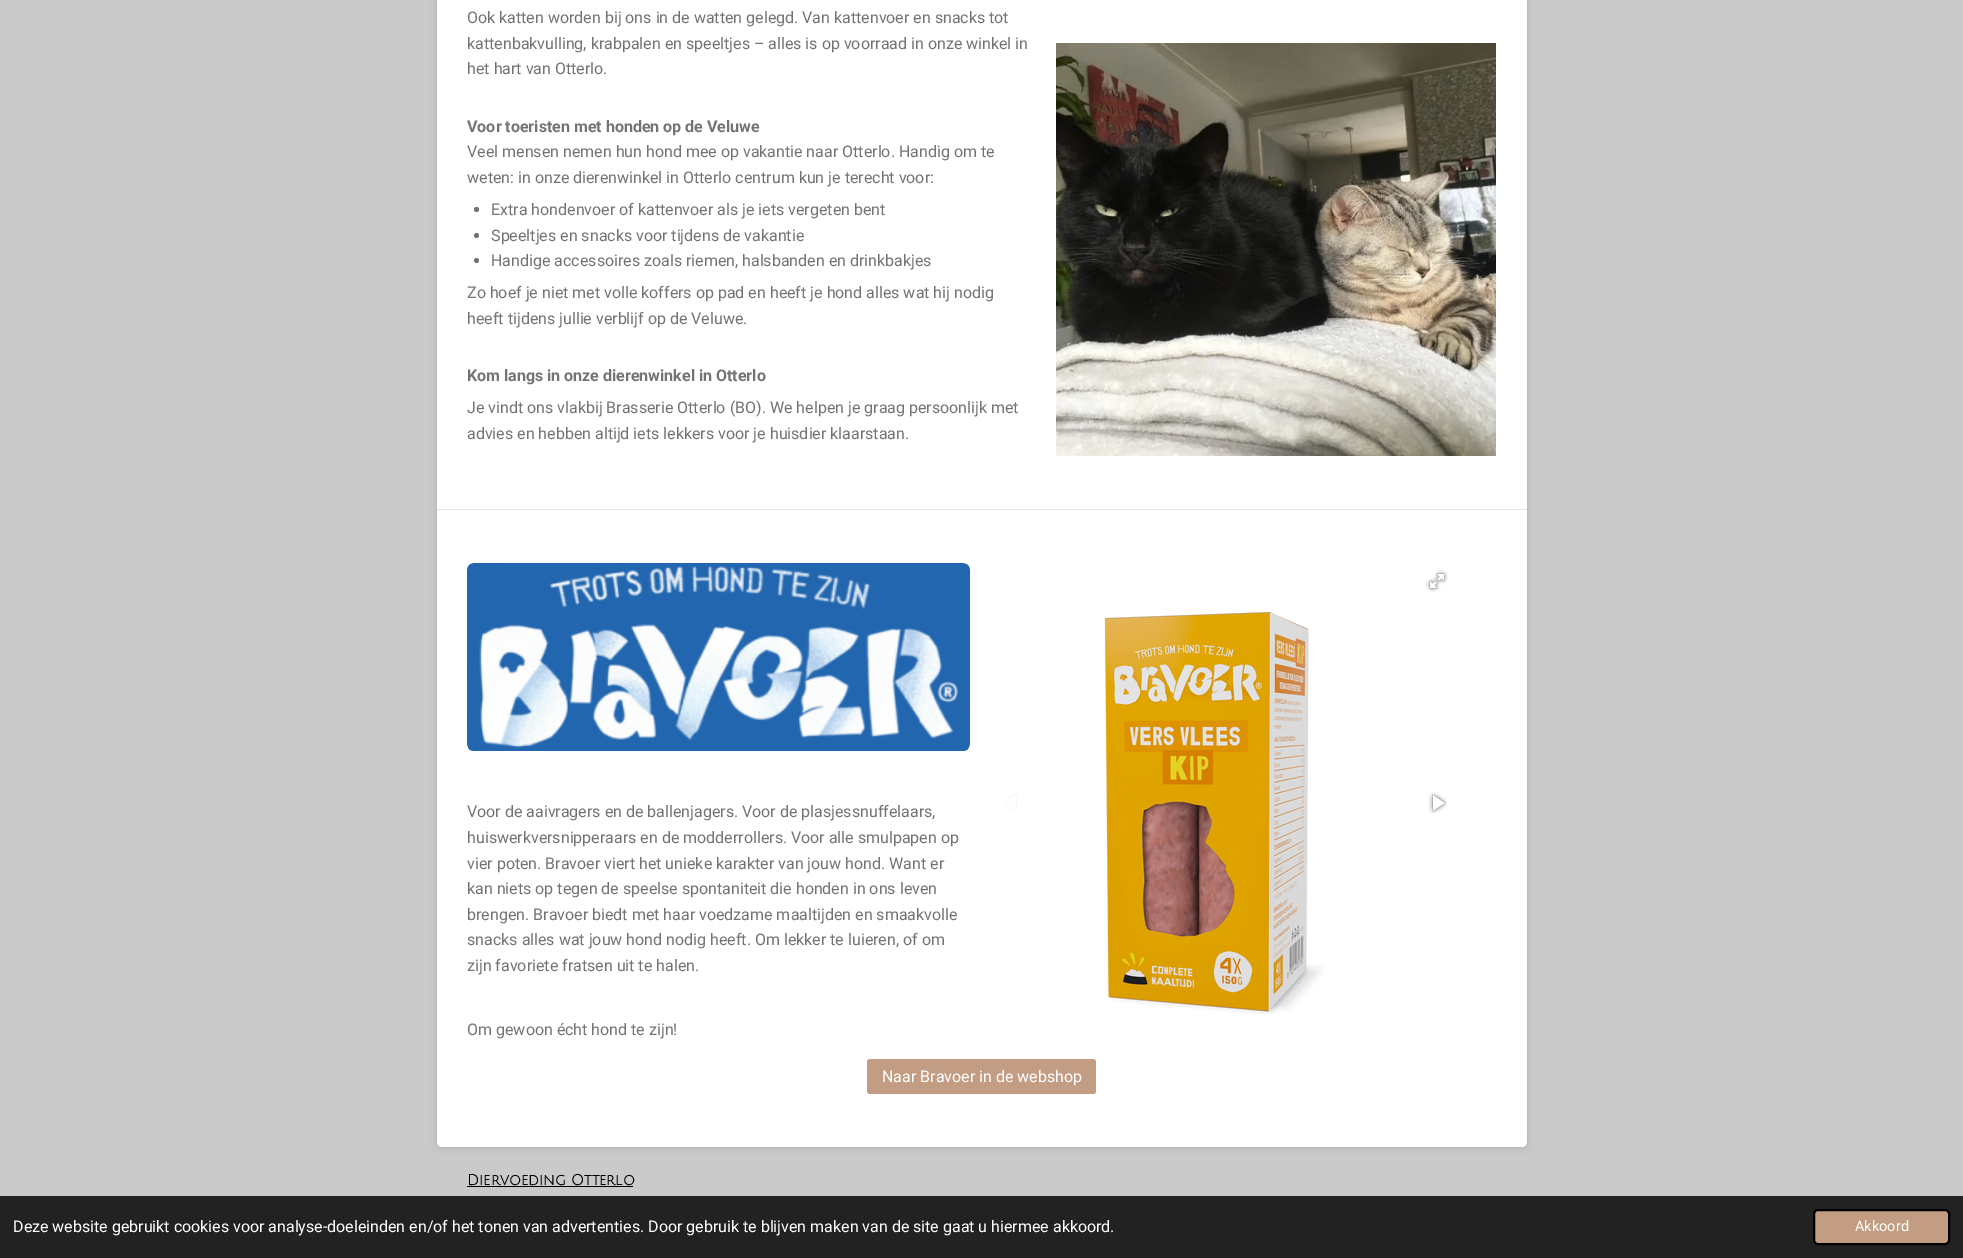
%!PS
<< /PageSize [1963 1258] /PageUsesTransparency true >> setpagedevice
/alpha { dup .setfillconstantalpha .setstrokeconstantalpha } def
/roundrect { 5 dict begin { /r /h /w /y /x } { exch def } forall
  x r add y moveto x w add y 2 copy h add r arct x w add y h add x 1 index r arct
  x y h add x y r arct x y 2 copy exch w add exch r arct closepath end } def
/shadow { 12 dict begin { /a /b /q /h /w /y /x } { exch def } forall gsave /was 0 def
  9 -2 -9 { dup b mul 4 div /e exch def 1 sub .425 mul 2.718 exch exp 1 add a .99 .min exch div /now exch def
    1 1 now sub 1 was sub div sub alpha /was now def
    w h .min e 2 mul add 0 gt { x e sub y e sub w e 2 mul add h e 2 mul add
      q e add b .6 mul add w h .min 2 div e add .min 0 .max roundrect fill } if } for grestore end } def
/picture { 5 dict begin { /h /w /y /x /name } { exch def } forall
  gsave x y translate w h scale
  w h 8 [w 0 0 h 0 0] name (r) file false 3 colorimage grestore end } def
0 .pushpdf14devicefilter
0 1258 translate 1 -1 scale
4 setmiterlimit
0.792 setgray
0 0 1963 1258 rectfill
0 setgray
437 -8 1090 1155 5 1 0.1 shadow
437 -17 1090 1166 5 4 0.07 shadow
1 setgray
437 -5 1090 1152 5 roundrect fill
/Roboto-Regular [16 0 0 -16 0 0] selectfont
0.451 setgray
467 23 moveto (Ook katten worden bij ons in de watten gelegd. Van kattenvoer en snacks tot) show
467 49 moveto (kattenbakvulling, krabpalen en speeltjes – alles is op voorraad in onze winkel in) show
467 74 moveto (het hart van Otterlo.) show
/Roboto-Bold [16 0 0 -16 0 0] selectfont
467 132 moveto (Voor toeristen met honden op de Veluwe) show
/Roboto-Regular [16 0 0 -16 0 0] selectfont
467 157 moveto (Veel mensen nemen hun hond mee op vakantie naar Otterlo. Handig om te) show
467 183 moveto (weten: in onze dierenwinkel in Otterlo centrum kun je terecht voor:) show
newpath 476.5 209.5 2.5 0 360 arc closepath fill
491 215 moveto (Extra hondenvoer of kattenvoer als je iets vergeten bent) show
newpath 476.5 235.5 2.5 0 360 arc closepath fill
491 241 moveto (Speeltjes en snacks voor tijdens de vakantie) show
newpath 476.5 260.5 2.5 0 360 arc closepath fill
491 266 moveto (Handige accessoires zoals riemen, halsbanden en drinkbakjes) show
467 298 moveto (Zo hoef je niet met volle koffers op pad en heeft je hond alles wat hij nodig) show
467 324 moveto (heeft tijdens jullie verblijf op de Veluwe.) show
/Roboto-Bold [16 0 0 -16 0 0] selectfont
467 381 moveto (Kom langs in onze dierenwinkel in Otterlo) show
/Roboto-Regular [16 0 0 -16 0 0] selectfont
467 413 moveto (Je vindt ons vlakbij Brasserie Otterlo \(BO\). We helpen je graag persoonlijk met) show
467 439 moveto (advies en hebben altijd iets lekkers voor je huisdier klaarstaan.) show
(img1.rgb) 1056 43 440 413 picture
0.89 setgray
437 509 1090 1 rectfill
(img2.rgb) 467 563 503 188 picture
0.451 setgray
467 817 moveto (Voor de aaivragers en de ballenjagers. Voor de plasjessnuffelaars,) show
467 843 moveto (huiswerkversnipperaars en de modderrollers. Voor alle smulpapen op) show
467 869 moveto (vier poten. Bravoer viert het unieke karakter van jouw hond. Want er) show
467 894 moveto (kan niets op tegen de speelse spontaniteit die honden in ons leven) show
467 920 moveto (brengen. Bravoer biedt met haar voedzame maaltijden en smaakvolle) show
467 945 moveto (snacks alles wat jouw hond nodig heeft. Om lekker te luieren, of om) show
467 971 moveto (zijn favoriete fratsen uit te halen.) show
467 1035 moveto (Om gewoon écht hond te zijn!) show
(img3.rgb) 1426 570 22 22 picture
(img4.rgb) 1003 794 14 18 picture
(img5.rgb) 1104 612 220 402 picture
(img6.rgb) 1428 792 20 22 picture
0.761 0.612 0.514 setrgbcolor
867 1059 229 35 3 roundrect fill
1 setgray
882 1082 moveto (Naar Bravoer in de webshop) show
/JuliusSansOne-Bold [14.75 0 0 -14.75 0 0] selectfont
0 setgray
467 1185 moveto (Diervoeding Otterlo) show
467 1186 166 1 rectfill
0.133 setgray
0 1196 1963 62 rectfill
/Roboto-Regular [16 0 0 -16 0 0] selectfont
1 setgray
13 1232 moveto (Deze website gebruikt cookies voor analyse-doeleinden en/of het tonen van advertenties. Door gebruik te blijven maken van de site gaat u hiermee akkoord.) show
0.761 0.612 0.514 setrgbcolor
1814 1210 135 34 4 roundrect gsave fill grestore
0 setgray
2 setlinewidth
stroke
/Roboto-Regular [14.5 0 0 -14.5 0 0] selectfont
1 setgray
1855 1231 moveto (Akkoord) show
.poppdf14devicefilter showpage
